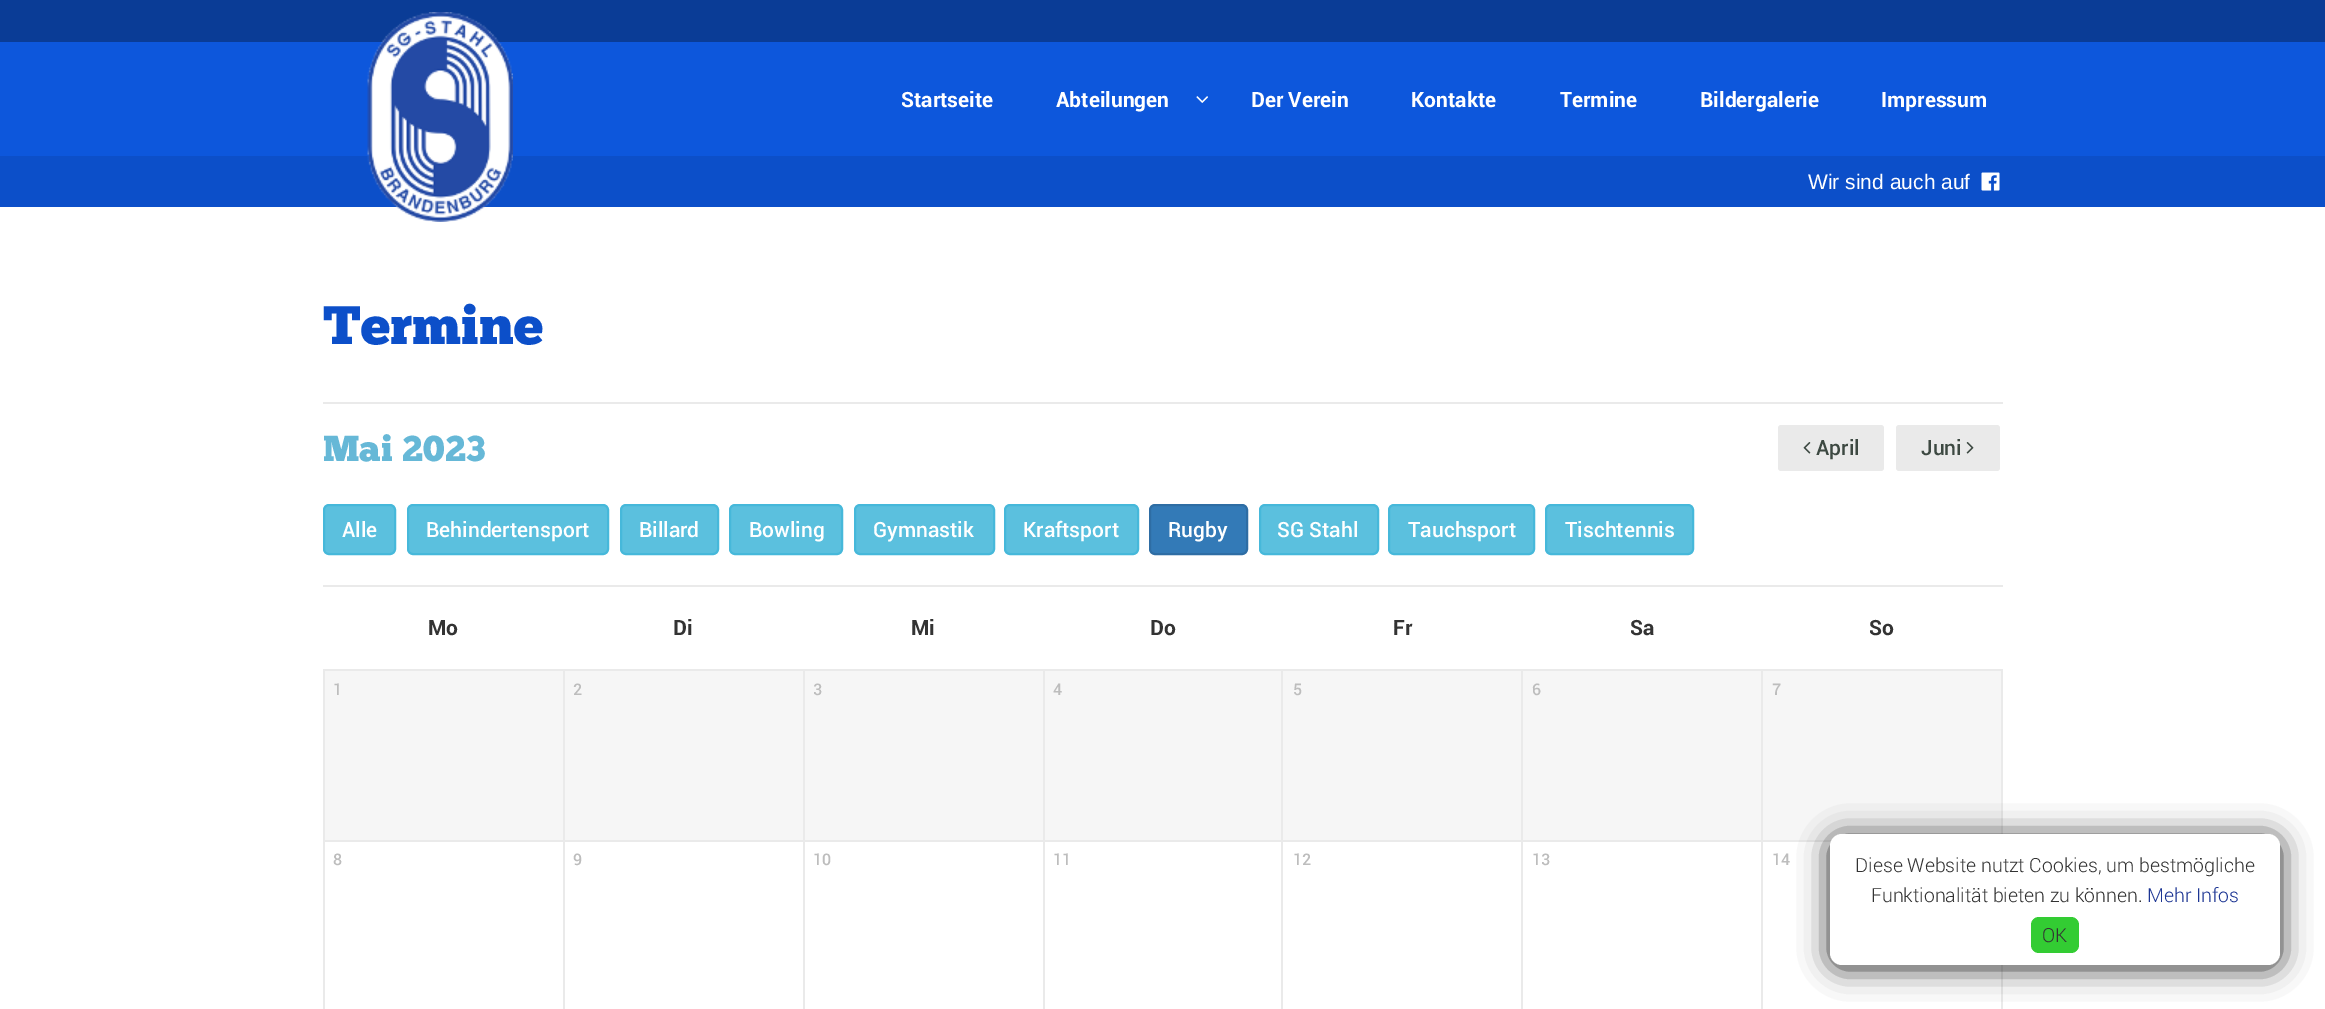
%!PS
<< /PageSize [2325 1009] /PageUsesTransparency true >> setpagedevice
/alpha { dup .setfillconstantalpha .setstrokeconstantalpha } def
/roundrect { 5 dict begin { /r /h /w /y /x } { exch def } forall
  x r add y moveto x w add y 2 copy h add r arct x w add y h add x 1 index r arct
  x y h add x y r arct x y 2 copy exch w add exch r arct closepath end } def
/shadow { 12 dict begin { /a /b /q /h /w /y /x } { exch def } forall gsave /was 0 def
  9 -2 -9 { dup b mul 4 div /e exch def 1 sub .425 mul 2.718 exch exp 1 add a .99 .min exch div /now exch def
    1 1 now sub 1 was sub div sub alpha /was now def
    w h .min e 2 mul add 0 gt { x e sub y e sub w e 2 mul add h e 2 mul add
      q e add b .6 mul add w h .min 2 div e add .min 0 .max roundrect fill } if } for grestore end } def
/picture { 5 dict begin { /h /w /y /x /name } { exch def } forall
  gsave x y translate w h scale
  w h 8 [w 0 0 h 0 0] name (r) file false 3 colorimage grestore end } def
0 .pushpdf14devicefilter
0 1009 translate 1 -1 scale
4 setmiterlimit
1 setgray
0 0 2325 1009 rectfill
0.039 0.235 0.588 setrgbcolor
0 0 2325 42 rectfill
0.051 0.341 0.863 setrgbcolor
0 42 2325 114 rectfill
0.047 0.31 0.788 setrgbcolor
0 156 2325 51 rectfill
(img1.rgb) 367 12 146 210 picture
/Roboto-Bold [21 0 0 -21 0 0] selectfont
1 setgray
901 107 moveto (Startseite) show
1056 107 moveto (Abteilungen) show
(img2.rgb) 1196 96 12 7 picture
1251 107 moveto (Der Verein) show
1411 107 moveto (Kontakte) show
1560 107 moveto (Termine) show
1700 107 moveto (Bildergalerie) show
1881 107 moveto (Impressum) show
/LiberationSans-Regular [21 0 0 -21 0 0] selectfont
1808 189 moveto (Wir sind auch auf) show
(img3.rgb) 1981 172 19 19 picture
/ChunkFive-Regular [54 0 0 -54 0 0] selectfont
0.047 0.31 0.788 setrgbcolor
323 344 moveto (Termine) show
0.918 setgray
323 402 1680 2 rectfill
/ChunkFive-Regular [36 0 0 -36 0 0] selectfont
0.4 0.722 0.843 setrgbcolor
323 461 moveto (Mai 2023) show
0.918 setgray
1778 425 106 46 3 roundrect fill
(img4.rgb) 1803 442 8 12 picture
/Roboto-Medium [21 0 0 -21 0 0] selectfont
0.239 0.286 0.259 setrgbcolor
1816 455 moveto (April) show
0.918 setgray
1896 425 104 46 3 roundrect fill
0.239 0.286 0.259 setrgbcolor
1921 455 moveto (Juni) show
(img5.rgb) 1966 442 8 12 picture
0.357 0.753 0.871 setrgbcolor
324 505 71 49 5 roundrect gsave fill grestore
0.275 0.722 0.855 setrgbcolor
2 setlinewidth
stroke
1 setgray
342 537 moveto (Alle) show
0.357 0.753 0.871 setrgbcolor
408 505 200 49 5 roundrect gsave fill grestore
0.275 0.722 0.855 setrgbcolor
stroke
1 setgray
426 537 moveto (Behindertensport) show
0.357 0.753 0.871 setrgbcolor
621 505 97 49 5 roundrect gsave fill grestore
0.275 0.722 0.855 setrgbcolor
stroke
1 setgray
639 537 moveto (Billard) show
0.357 0.753 0.871 setrgbcolor
730 505 112 49 5 roundrect gsave fill grestore
0.275 0.722 0.855 setrgbcolor
stroke
1 setgray
749 537 moveto (Bowling) show
0.357 0.753 0.871 setrgbcolor
855 505 139 49 5 roundrect gsave fill grestore
0.275 0.722 0.855 setrgbcolor
stroke
1 setgray
873 537 moveto (Gymnastik) show
0.357 0.753 0.871 setrgbcolor
1005 505 133 49 5 roundrect gsave fill grestore
0.275 0.722 0.855 setrgbcolor
stroke
1 setgray
1023 537 moveto (Kraftsport) show
0.2 0.478 0.718 setrgbcolor
1150 505 97 49 5 roundrect gsave fill grestore
0.18 0.427 0.643 setrgbcolor
stroke
1 setgray
1168 537 moveto (Rugby) show
0.357 0.753 0.871 setrgbcolor
1260 505 118 49 5 roundrect gsave fill grestore
0.275 0.722 0.855 setrgbcolor
stroke
1 setgray
1277 537 moveto (SG Stahl) show
0.357 0.753 0.871 setrgbcolor
1389 505 145 49 5 roundrect gsave fill grestore
0.275 0.722 0.855 setrgbcolor
stroke
1 setgray
1408 537 moveto (Tauchsport) show
0.357 0.753 0.871 setrgbcolor
1546 505 147 49 5 roundrect gsave fill grestore
0.275 0.722 0.855 setrgbcolor
stroke
1 setgray
1565 537 moveto (Tischtennis) show
/Roboto-Bold [21 0 0 -21 0 0] selectfont
0.2 setgray
428 635 moveto (Mo) show
673 635 moveto (Di) show
911 635 moveto (Mi) show
1150 635 moveto (Do) show
1393 635 moveto (Fr) show
1630 635 moveto (Sa) show
0.918 setgray
323 585 1680 2 rectfill
0.2 setgray
1869 635 moveto (So) show
0.965 setgray
325 671 238 169 rectfill
0.918 setgray
1761 669 242 2 rectfill
1761 840 71 2 rectfill
1761 840 2 169 rectfill
1521 840 242 2 rectfill
1761 669 2 173 rectfill
1521 669 242 2 rectfill
1521 840 2 169 rectfill
1281 840 242 2 rectfill
1521 669 2 173 rectfill
1281 669 242 2 rectfill
1281 840 2 169 rectfill
1043 840 240 2 rectfill
1281 669 2 173 rectfill
1043 669 240 2 rectfill
1043 840 2 169 rectfill
803 840 241 2 rectfill
1043 669 2 173 rectfill
803 669 241 2 rectfill
803 840 2 169 rectfill
563 840 241 2 rectfill
803 669 2 173 rectfill
563 669 241 2 rectfill
563 840 2 169 rectfill
323 840 241 2 rectfill
563 669 2 173 rectfill
323 669 241 2 rectfill
323 840 2 169 rectfill
323 669 2 173 rectfill
/Roboto-Medium [16 0 0 -16 0 0] selectfont
0.741 setgray
333 695 moveto (1) show
0.965 setgray
565 671 238 169 rectfill
0.741 setgray
573 695 moveto (2) show
0.965 setgray
805 671 238 169 rectfill
0.741 setgray
813 695 moveto (3) show
0.965 setgray
1045 671 236 169 rectfill
0.741 setgray
1053 695 moveto (4) show
0.965 setgray
1283 671 238 169 rectfill
0.741 setgray
1293 695 moveto (5) show
0.965 setgray
1523 671 238 169 rectfill
0.741 setgray
1532 695 moveto (6) show
0.965 setgray
1763 671 238 169 rectfill
0.918 setgray
2001 669 2 173 rectfill
0.741 setgray
1772 695 moveto (7) show
333 865 moveto (8) show
573 865 moveto (9) show
813 865 moveto (10) show
1053 865 moveto (11) show
1293 865 moveto (12) show
1532 865 moveto (13) show
0.918 setgray
2001 965 2 44 rectfill
0.741 setgray
1772 865 moveto (14) show
0.133 setgray
1830 837 450 131 12 15 1 shadow
1 setgray
1830 834 450 131 12 roundrect fill
/Roboto-Light [19.5 0 0 -19.5 0 0] selectfont
0.2 setgray
1855 872 moveto (Diese Website nutzt Cookies, um bestmögliche) show
1871 902 moveto (Funktionalität bieten zu können.) show
0.11 0.208 0.576 setrgbcolor
2147 902 moveto (Mehr Infos) show
0.2 0.8 0.2 setrgbcolor
2031 917 48 36 8 roundrect fill
0.2 setgray
2042 942 moveto (OK) show
.poppdf14devicefilter showpage
